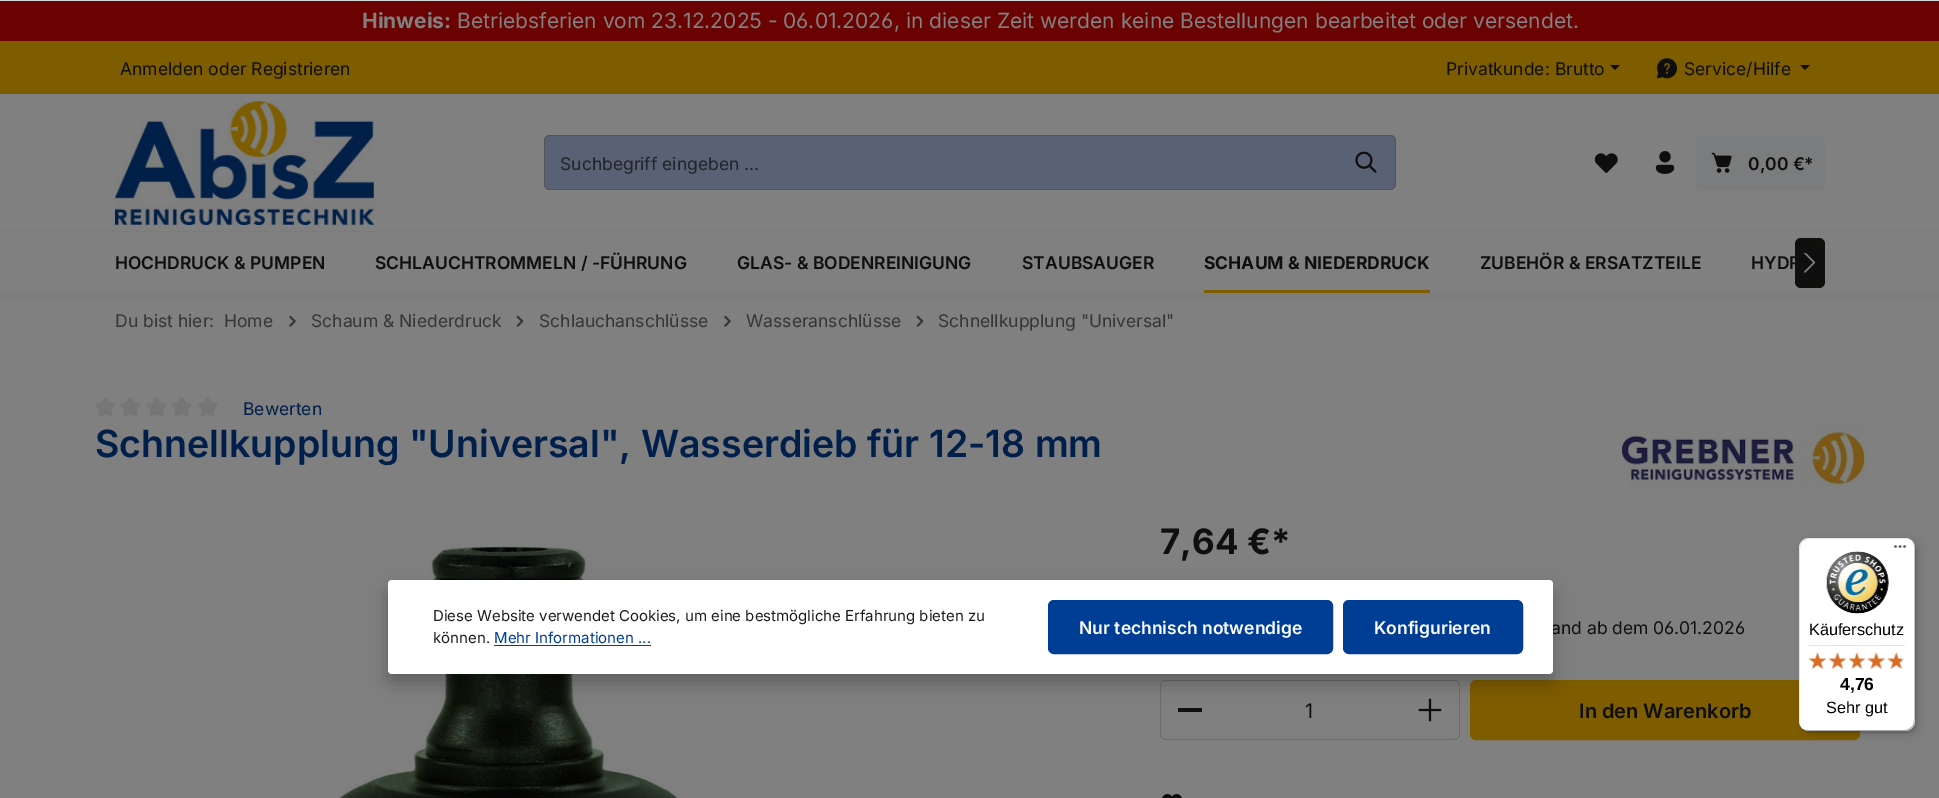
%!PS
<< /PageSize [1939 798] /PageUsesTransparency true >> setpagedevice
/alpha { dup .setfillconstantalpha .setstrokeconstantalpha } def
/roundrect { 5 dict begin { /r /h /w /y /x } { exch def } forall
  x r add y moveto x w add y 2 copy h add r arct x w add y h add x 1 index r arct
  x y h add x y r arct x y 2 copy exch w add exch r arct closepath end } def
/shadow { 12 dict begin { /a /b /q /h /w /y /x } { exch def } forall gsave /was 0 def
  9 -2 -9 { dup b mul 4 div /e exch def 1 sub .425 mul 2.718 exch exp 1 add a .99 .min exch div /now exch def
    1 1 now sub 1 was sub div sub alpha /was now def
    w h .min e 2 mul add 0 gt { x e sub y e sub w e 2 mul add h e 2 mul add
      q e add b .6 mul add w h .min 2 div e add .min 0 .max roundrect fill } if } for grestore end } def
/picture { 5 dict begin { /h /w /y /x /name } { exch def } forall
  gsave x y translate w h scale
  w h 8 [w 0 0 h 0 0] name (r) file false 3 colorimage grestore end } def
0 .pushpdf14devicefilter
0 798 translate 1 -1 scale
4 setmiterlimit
0.502 setgray
0 0 1939 798 rectfill
0.043 0.047 0.059 setrgbcolor
0 0 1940 293 0 6 0.1 shadow
0.416 0.008 0.008 setrgbcolor
0 1 1939 40 rectfill
/Inter-Bold [21 0 0 -21 0 0] selectfont
0.502 setgray
362 28 moveto (Hinweis:) show
/Inter-Regular [21 0 0 -21 0 0] selectfont
457 28 moveto (Betriebsferien vom 23.12.2025 -) show
/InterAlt-Regular [21 0 0 -21 0 0] selectfont
783 28 moveto (06.01.2026) show
/Inter-Regular [21 0 0 -21 0 0] selectfont
894 28 moveto (, in dieser Zeit werden keine Bestellungen bearbeitet oder versendet.) show
0.494 0.365 0 setrgbcolor
0 41 1939 53 rectfill
/Inter-Regular [17.5 0 0 -17.5 0 0] selectfont
0.059 0.059 0.055 setrgbcolor
120 75 moveto (Anmelden oder Registrieren) show
1446 75 moveto (Privatkunde: Brutto) show
newpath 1610 65 moveto 1620 65 lineto 1615 70 lineto closepath fill
(img1.rgb) 1657 58 21 21 picture
1684 75 moveto (Service/Hilfe) show
newpath 1800 65 moveto 1810 65 lineto 1805 70 lineto closepath fill
0.502 setgray
0 94 1939 137 rectfill
(img2.rgb) 115 101 259 124 picture
0.349 0.384 0.455 setrgbcolor
newpath 550 135 moveto 1339 135 lineto 1339 190 lineto 550 190 lineto 546.5 190 544 187.5 544 184 curveto 544 141 lineto 544 137.5 546.5 135 550 135 curveto closepath fill
0.325 setgray
newpath 550 135 moveto 1339 135 lineto 1339 190 lineto 550 190 lineto 547 190 544 187 544 184 curveto 544 141 lineto 544 138 547 135 550 135 curveto closepath 550 136 moveto 1339 136 lineto 1339 189 lineto 550 189 lineto 547 189 545 187 545 184 curveto 545 141 lineto 545 138 547 136 550 136 curveto closepath eofill
0.129 0.141 0.157 setrgbcolor
560 170 moveto (Suchbegriff eingeben ...) show
0.349 0.384 0.455 setrgbcolor
newpath 1338 135 moveto 1390 135 lineto 1393.5 135 1396 137.5 1396 141 curveto 1396 184 lineto 1396 187.5 1393.5 190 1390 190 curveto 1338 190 lineto closepath fill
0.325 setgray
newpath 1338 135 moveto 1390 135 lineto 1393 135 1396 138 1396 141 curveto 1396 184 lineto 1396 187 1393 190 1390 190 curveto 1338 190 lineto closepath 1338 136 moveto 1390 136 lineto 1393 136 1395 138 1395 141 curveto 1395 184 lineto 1395 187 1393 189 1390 189 curveto 1338 189 lineto closepath eofill
(img3.rgb) 1355 151 22 22 picture
(img4.rgb) 1594 153 24 21 picture
(img5.rgb) 1655 151 20 23 picture
0.482 0.486 0.49 setrgbcolor
1696 136 129 54 6 roundrect fill
(img6.rgb) 1711 152 21 21 picture
/Inter-SemiBold [17.5 0 0 -17.5 0 0] selectfont
0.059 0.059 0.055 setrgbcolor
1748 170 moveto (0,00 €*) show
0.502 setgray
0 232 1939 61 rectfill
0.482 0.486 0.49 setrgbcolor
0 231 1939 1 rectfill
0.059 0.059 0.055 setrgbcolor
115 269 moveto (HOCHDRUCK & PUMPEN) show
375 269 moveto (SCHLAUCHTROMMELN / -FÜHRUNG) show
737 269 moveto (GLAS- & BODENREINIGUNG) show
1022 269 moveto (STAUBSAUGER) show
/Inter-Bold [17.5 0 0 -17.5 0 0] selectfont
1204 269 moveto (SCHAUM & NIEDERDRUCK) show
0.494 0.365 0 setrgbcolor
1204 290 226 3 rectfill
/Inter-SemiBold [17.5 0 0 -17.5 0 0] selectfont
0.059 0.059 0.055 setrgbcolor
1480 269 moveto (ZUBEHÖR & ERSATZTEILE) show
1751 269 moveto (HYDR) show
1795 238 30 50 6 roundrect fill
(img7.rgb) 1804 253 12 20 picture
/Inter-Regular [17.5 0 0 -17.5 0 0] selectfont
0.212 0.212 0.204 setrgbcolor
115 327 moveto (Du bist hier:) show
224 327 moveto (Home) show
(img8.rgb) 289 315 7 12 picture
311 327 moveto (Schaum & Niederdruck) show
(img9.rgb) 516 315 8 12 picture
539 327 moveto (Schlauchanschlüsse) show
(img8.rgb) 724 315 7 12 picture
746 327 moveto (Wasseranschlüsse) show
(img9.rgb) 916 315 8 12 picture
938 327 moveto (Schnellkupplung "Universal") show
(img10.rgb) 95 397 21 20 picture
(img10.rgb) 120 397 21 20 picture
(img11.rgb) 146 397 20 20 picture
(img12.rgb) 171 397 21 20 picture
(img13.rgb) 198 397 20 20 picture
0 0.122 0.294 setrgbcolor
243 415 moveto (Bewerten) show
/Inter-SemiBold [37.5 0 0 -37.5 0 0] selectfont
95 457 moveto (Schnellkupplung "Universal", Wasserdieb für 12-18 mm) show
(img14.rgb) 1620 421 248 66 picture
(img15.rgb) 339 541 341 257 picture
/Inter-Bold [35 0 0 -35 0 0] selectfont
0.059 0.059 0.055 setrgbcolor
1160 554 moveto (7,64 €*) show
/Inter-Regular [17.5 0 0 -17.5 0 0] selectfont
1551 634 moveto (and ab dem) show
/InterAlt-Regular [17.5 0 0 -17.5 0 0] selectfont
1653 634 moveto (06.01.2026) show
0.42 setgray
1218 680 185 1 rectfill
1218 739 185 1 rectfill
0.502 setgray
newpath 1166 680 moveto 1219 680 lineto 1219 740 lineto 1166 740 lineto 1162.5 740 1160 737.5 1160 734 curveto 1160 686 lineto 1160 682.5 1162.5 680 1166 680 curveto closepath fill
0.42 setgray
newpath 1166 680 moveto 1219 680 lineto 1219 740 lineto 1166 740 lineto 1163 740 1160 737 1160 734 curveto 1160 686 lineto 1160 683 1163 680 1166 680 curveto closepath 1166 681 moveto 1219 681 lineto 1219 739 lineto 1166 739 lineto 1163 739 1161 737 1161 734 curveto 1161 686 lineto 1161 683 1163 681 1166 681 curveto closepath eofill
0.059 0.059 0.055 setrgbcolor
1178 708 24 4 rectfill
/Inter-Regular [20 0 0 -20 0 0] selectfont
1305 718 moveto (1) show
0.502 setgray
newpath 1401 680 moveto 1454 680 lineto 1457.5 680 1460 682.5 1460 686 curveto 1460 734 lineto 1460 737.5 1457.5 740 1454 740 curveto 1401 740 lineto closepath fill
0.42 setgray
newpath 1401 680 moveto 1454 680 lineto 1457 680 1460 683 1460 686 curveto 1460 734 lineto 1460 737 1457 740 1454 740 curveto 1401 740 lineto closepath 1401 681 moveto 1454 681 lineto 1457 681 1459 683 1459 686 curveto 1459 734 lineto 1459 737 1457 739 1454 739 curveto 1401 739 lineto closepath eofill
(img16.rgb) 1418 698 24 24 picture
0.494 0.365 0 setrgbcolor
1470.5 680.5 389 59 5.5 roundrect gsave fill grestore
stroke
/Inter-SemiBold [20 0 0 -20 0 0] selectfont
0.059 0.059 0.055 setrgbcolor
1579 718 moveto (In den Warenkorb) show
(img17.rgb) 1162 794 20 4 picture
0.835 0.843 0.859 setrgbcolor
0 0 1939 1 rectfill
0 setgray
388 590 1165 94 4 10 0.25 shadow
1 setgray
388 580 1165 94 4 roundrect fill
/Inter-Regular [15 0 0 -15 0 0] selectfont
0.114 0.114 0.11 setrgbcolor
433 621 moveto (Diese Website verwendet Cookies, um eine bestmögliche Erfahrung bieten zu) show
433 643 moveto (können.) show
0 0.243 0.584 setrgbcolor
494 643 moveto (Mehr Informationen ...) show
494 645 157 1 rectfill
1048.5 600.5 284 53 5.5 roundrect gsave fill grestore
stroke
/Inter-SemiBold [17.5 0 0 -17.5 0 0] selectfont
1 setgray
1079 634 moveto (Nur technisch notwendige) show
0 0.243 0.584 setrgbcolor
1343.5 600.5 179 53 5.5 roundrect gsave fill grestore
stroke
1 setgray
1374 634 moveto (Konfigurieren) show
0 setgray
1803 541 116 194 10 5 0.15 shadow
1800 539 116 194 10 1 0.15 shadow
1 setgray
1799 538 116 193 10 roundrect fill
0.1 alpha
0 setgray
newpath 1810 539 moveto 1906 539 lineto 1908 539 1910 539 1911 540 curveto 1910 539 1907 538 1905 538 curveto 1809 538 lineto 1803 538 1799 542 1799 548 curveto 1799 721 lineto 1799 723 1800 726 1801 727 curveto 1800 726 1800 724 1800 722 curveto 1800 549 lineto 1800 543 1804 539 1810 539 curveto closepath fill
0.2 alpha
newpath 1803 729 moveto 1804 730 1807 731 1809 731 curveto 1905 731 lineto 1911 731 1915 727 1915 721 curveto 1915 548 lineto 1915 546 1914 544 1913 542 curveto 1914 543 1914 545 1914 546 curveto 1914 720 lineto 1914 726 1909 730 1904 730 curveto 1808 730 lineto 1806 730 1804 730 1803 729 curveto closepath fill
0.196 setgray
newpath 1803 729 moveto 1804 730 1807 731 1809 731 curveto 1905 731 lineto 1911 731 1915 727 1915 721 curveto 1915 548 lineto 1915 546 1914 543 1913 542 curveto 1914 543 1914 545 1914 547 curveto 1914 720 lineto 1914 726 1910 730 1904 730 curveto 1808 730 lineto 1806 730 1804 730 1803 729 curveto closepath fill
0.3 alpha
1 setgray
newpath 1904 731 moveto 1905 731 lineto 1911 731 1915 727 1915 721 curveto 1915 548 lineto 1915 546 1914 543 1913 542 curveto 1914 543 1914 545 1914 547 curveto 1914 721 lineto 1914 726 1910 731 1904 731 curveto closepath fill
1 alpha
(img18.rgb) 1893 545 14 3 picture
(img19.rgb) 1826 551 63 63 picture
/LiberationSans-Regular [16.25 0 0 -16.25 0 0] selectfont
0 setgray
1809 635 moveto (Käuferschutz) show
0.898 setgray
1809 645 96 1 rectfill
(img25.rgb) 1809 653 17 16 picture
(img20.rgb) 1808 652 18 17 picture
(img26.rgb) 1829 653 17 16 picture
(img21.rgb) 1828 652 19 17 picture
(img27.rgb) 1849 653 16 16 picture
(img22.rgb) 1848 652 17 17 picture
(img28.rgb) 1867 652 18 17 picture
(img23.rgb) 1867 652 18 17 picture
(img29.rgb) 1887 653 18 16 picture
(img24.rgb) 1887 652 15 17 picture
/LiberationSans-Bold [17.5 0 0 -17.5 0 0] selectfont
0 setgray
1840 690 moveto (4,76) show
/LiberationSans-Regular [16.25 0 0 -16.25 0 0] selectfont
1826 713 moveto (Sehr gut) show
.poppdf14devicefilter showpage
